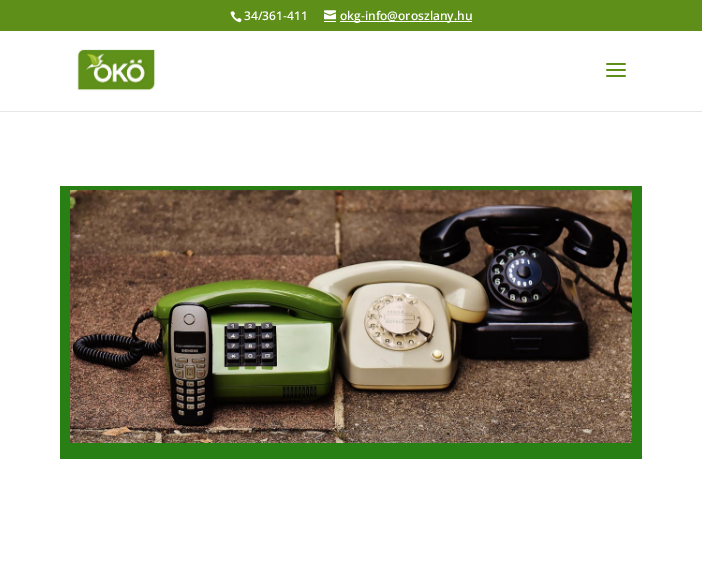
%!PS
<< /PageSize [702 568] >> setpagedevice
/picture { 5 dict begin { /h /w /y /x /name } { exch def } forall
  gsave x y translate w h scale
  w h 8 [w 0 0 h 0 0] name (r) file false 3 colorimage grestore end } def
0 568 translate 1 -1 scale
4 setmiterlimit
1 setgray
0 0 702 568 rectfill
0.369 0.561 0.098 setrgbcolor
0 0 702 31 rectfill
(img1.rgb) 230 11 12 12 picture
/OpenSans-SemiBold [12 0 0 -12 0 0] selectfont
1 setgray
244 20 moveto (34/361-411) show
(img2.rgb) 324 10 12 10 picture
340 21 132 1 rectfill
340 20 moveto (okg-info@oroszlany.hu) show
324 21 12 1 rectfill
0.902 setgray
0 111 702 1 rectfill
(img3.rgb) 75 49 82 43 picture
(img4.rgb) 606 63 20 14 picture
0.157 0.498 0.078 setrgbcolor
newpath 60 186 moveto 60 459 lineto 642 459 lineto 642 186 lineto closepath 70 190 moveto 70 443 lineto 632 443 lineto 632 190 lineto closepath eofill
(img5.rgb) 70 190 562 253 picture
showpage
